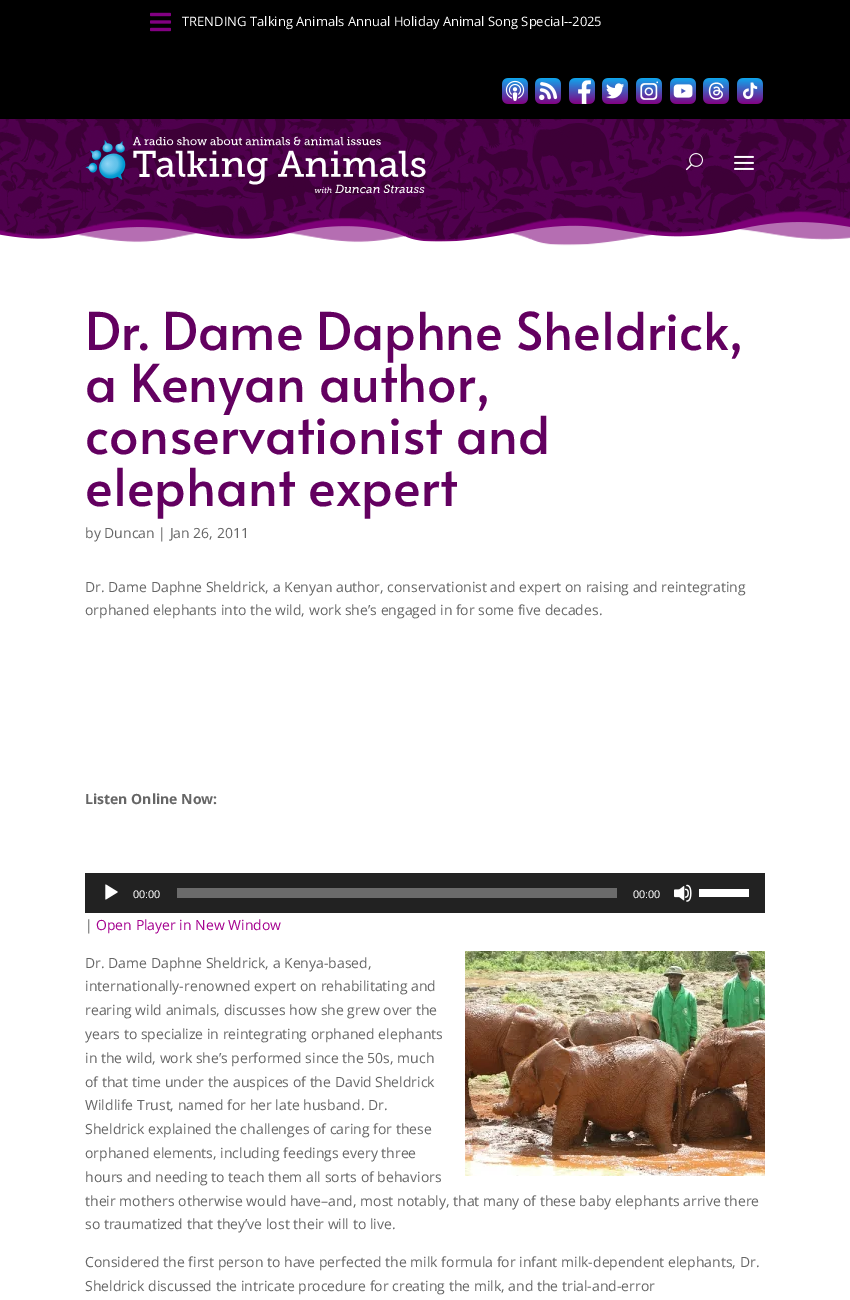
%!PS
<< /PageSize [850 1300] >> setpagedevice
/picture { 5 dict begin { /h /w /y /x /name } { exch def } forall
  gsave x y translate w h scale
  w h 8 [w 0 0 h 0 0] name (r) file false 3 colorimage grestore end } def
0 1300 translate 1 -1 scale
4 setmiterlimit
1 setgray
0 0 850 1300 rectfill
0 setgray
0 0 850 119 rectfill
(img1.rgb) 150 12 21 20 picture
/OpenSans-Regular [13 0 0 -13 0 0] selectfont
1 setgray
182 26 moveto (TRENDING Talking Animals Annual Holiday Animal Song Special--2025) show
(img2.rgb) 502 78 26 26 picture
(img3.rgb) 535 78 26 26 picture
(img4.rgb) 569 78 26 26 picture
(img5.rgb) 602 78 26 26 picture
(img6.rgb) 636 78 26 26 picture
(img7.rgb) 670 78 26 26 picture
(img8.rgb) 703 78 26 26 picture
(img9.rgb) 737 78 26 26 picture
(img10.rgb) 0 119 850 127 picture
(img11.rgb) 85 136 341 58 picture
(img12.rgb) 686 153 17 18 picture
(img13.rgb) 734 155 20 15 picture
/Alata-Regular [52 0 0 -52 0 0] selectfont
0.388 0 0.376 setrgbcolor
85 350 moveto (Dr. Dame Daphne Sheldrick,) show
85 402 moveto (a Kenyan author,) show
85 454 moveto (conservationist and) show
85 506 moveto (elephant expert) show
/OpenSans-Regular [14 0 0 -14 0 0] selectfont
0.4 setgray
85 538 moveto (by Duncan | Jan 26, 2011) show
85 592 moveto (Dr. Dame Daphne Sheldrick, a Kenyan author, conservationist and expert on raising and reintegrating) show
85 615 moveto (orphaned elephants into the wild, work she’s engaged in for some five decades.) show
/OpenSans-Bold [14 0 0 -14 0 0] selectfont
85 804 moveto (Listen Online Now:) show
0.133 setgray
85 873 680 40 rectfill
(img14.rgb) 105 884 13 16 picture
/LiberationSans-Regular [11 0 0 -11 0 0] selectfont
1 setgray
133 898 moveto (00:00) show
0.42 setgray
177 888 440 10 rectfill
1 setgray
633 898 moveto (00:00) show
(img15.rgb) 674 884 18 18 picture
699 889 50 8 rectfill
/OpenSans-Regular [14 0 0 -14 0 0] selectfont
0.4 setgray
85 930 moveto (|) show
0.647 0 0.561 setrgbcolor
96 930 moveto (Open Player in New Window) show
0.4 setgray
85 968 moveto (Dr. Dame Daphne Sheldrick, a Kenya-based,) show
(img16.rgb) 465 951 300 225 picture
85 991 moveto (internationally-renowned expert on rehabilitating and) show
85 1015 moveto (rearing wild animals, discusses how she grew over the) show
85 1039 moveto (years to specialize in reintegrating orphaned elephants) show
85 1063 moveto (in the wild, work she’s performed since the 50s, much) show
85 1087 moveto (of that time under the auspices of the David Sheldrick) show
85 1110 moveto (Wildlife Trust, named for her late husband. Dr.) show
85 1134 moveto (Sheldrick explained the challenges of caring for these) show
85 1158 moveto (orphaned elements, including feedings every three) show
85 1182 moveto (hours and needing to teach them all sorts of behaviors) show
85 1206 moveto (their mothers otherwise would have–and, most notably, that many of these baby elephants arrive there) show
85 1229 moveto (so traumatized that they’ve lost their will to live.) show
85 1267 moveto (Considered the first person to have perfected the milk formula for infant milk-dependent elephants, Dr.) show
85 1291 moveto (Sheldrick discussed the intricate procedure for creating the milk, and the trial-and-error) show
showpage
